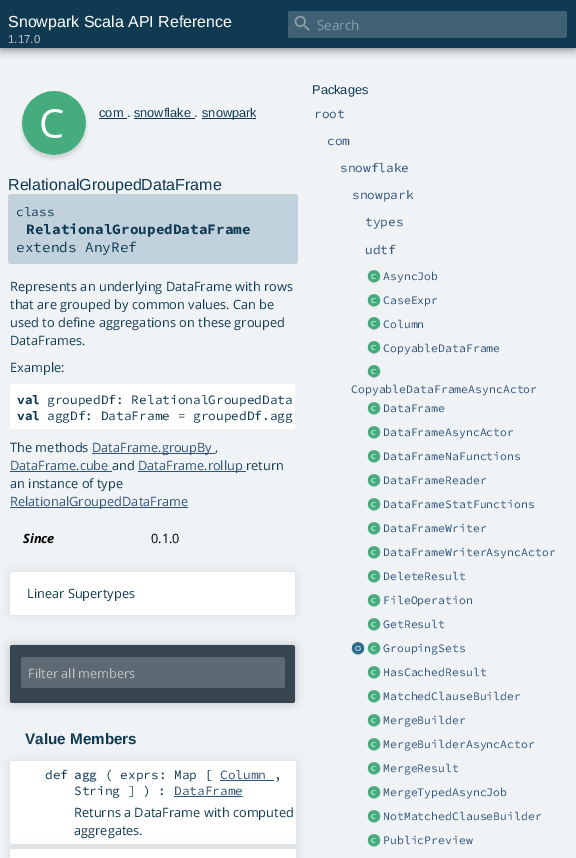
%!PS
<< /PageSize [576 858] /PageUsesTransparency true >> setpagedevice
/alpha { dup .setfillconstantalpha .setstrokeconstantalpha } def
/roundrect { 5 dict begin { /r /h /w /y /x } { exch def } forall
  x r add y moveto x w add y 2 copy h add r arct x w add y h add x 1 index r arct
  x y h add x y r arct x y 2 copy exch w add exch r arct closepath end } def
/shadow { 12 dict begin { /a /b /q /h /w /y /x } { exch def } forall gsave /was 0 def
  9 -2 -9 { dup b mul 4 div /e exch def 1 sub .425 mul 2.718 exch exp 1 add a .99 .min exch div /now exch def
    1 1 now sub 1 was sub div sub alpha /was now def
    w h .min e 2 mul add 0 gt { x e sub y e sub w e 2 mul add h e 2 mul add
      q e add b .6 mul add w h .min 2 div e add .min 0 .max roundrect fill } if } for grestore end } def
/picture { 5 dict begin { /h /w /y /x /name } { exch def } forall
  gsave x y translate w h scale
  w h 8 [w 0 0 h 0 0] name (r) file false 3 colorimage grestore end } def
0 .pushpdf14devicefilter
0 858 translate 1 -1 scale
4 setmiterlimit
0.941 0.953 0.965 setrgbcolor
0 0 576 858 rectfill
0 setgray
0 4 576 48 0 4 0.28 shadow
0 0 576 48 0 2 0.18 shadow
0.063 0.227 0.318 setrgbcolor
0 0 576 48 rectfill
/LiberationSans-Regular [16 0 0 -16 0 0] selectfont
1 setgray
8 27 moveto (Snowpark Scala API Reference) show
/LiberationSans-Regular [11.5 0 0 -11.5 0 0] selectfont
0.749 0.765 0.78 setrgbcolor
8 43 moveto (1.17.0) show
0.251 0.38 0.455 setrgbcolor
288 11 279 27 2.5 roundrect fill
(img1.rgb) 294 15 16 16 picture
/OpenSans-Regular [13.5 0 0 -13.5 0 0] selectfont
0.549 0.627 0.675 setrgbcolor
317 30 moveto (Search) show
(img2.rgb) 20 91 68 70 picture
/LiberationSans-Regular [12.8 0 0 -12.8 0 0] selectfont
0.063 0.227 0.318 setrgbcolor
99 117 moveto (com . snowflake .) show
99 118 28 1 rectfill
202 118 54 1 rectfill
202 117 moveto (snowpark) show
134 118 61 1 rectfill
/LiberationSans-Regular [16 0 0 -16 0 0] selectfont
8 190 moveto (RelationalGroupedDataFrame) show
0.761 0.824 0.863 setrgbcolor
8 194 290 70 3 roundrect fill
/SourceCodePro-Regular [12.8 0 0 -12.8 0 0] selectfont
0.063 0.227 0.318 setrgbcolor
16 216 moveto (class) show
/SourceCodePro-Bold [14.4 0 0 -14.4 0 0] selectfont
26 234 moveto (RelationalGroupedDataFrame) show
/SourceCodePro-Regular [14.4 0 0 -14.4 0 0] selectfont
16 252 moveto (extends AnyRef) show
/OpenSans-Regular [12.8 0 0 -12.8 0 0] selectfont
10 291 moveto (Represents an underlying DataFrame with rows) show
10 309 moveto (that are grouped by common values. Can be) show
10 327 moveto (used to define aggregations on these grouped) show
10 345 moveto (DataFrames.) show
10 372 moveto (Example:) show
1 setgray
10 384 285 45 2.5 roundrect fill
/SourceCodePro-Bold [12.8 0 0 -12.8 0 0] selectfont
0.063 0.227 0.318 setrgbcolor
17 404 moveto (val) show
/SourceCodePro-Regular [12.8 0 0 -12.8 0 0] selectfont
47 404 moveto (groupedDf: RelationalGroupedData) show
/SourceCodePro-Bold [12.8 0 0 -12.8 0 0] selectfont
17 420 moveto (val) show
/SourceCodePro-Regular [12.8 0 0 -12.8 0 0] selectfont
47 420 moveto (aggDf: DataFrame = groupedDf.agg) show
/OpenSans-Regular [12.8 0 0 -12.8 0 0] selectfont
10 452 moveto (The methods) show
0.192 0.329 0.475 setrgbcolor
92 453 123 1 rectfill
92 452 moveto (DataFrame.groupBy) show
0.063 0.227 0.318 setrgbcolor
215 452 moveto (,) show
0.192 0.329 0.475 setrgbcolor
10 470 moveto (DataFrame.cube) show
10 471 102 1 rectfill
0.063 0.227 0.318 setrgbcolor
112 470 moveto (and) show
0.192 0.329 0.475 setrgbcolor
138 471 108 1 rectfill
138 470 moveto (DataFrame.rollup) show
0.063 0.227 0.318 setrgbcolor
246 470 moveto (return) show
10 488 moveto (an instance of type) show
0.192 0.329 0.475 setrgbcolor
10 507 178 1 rectfill
10 506 moveto (RelationalGroupedDataFrame) show
/OpenSans-BoldItalic [12.8 0 0 -12.8 0 0] selectfont
0 setgray
23 543 moveto (Since) show
/OpenSans-Regular [12.8 0 0 -12.8 0 0] selectfont
151 543 moveto (0.1.0) show
10 572 285 43 2.5 5 0.1 shadow
1 setgray
10 572 285 43 2.5 roundrect fill
0.063 0.227 0.318 setrgbcolor
27 598 moveto (Linear Supertypes) show
0 setgray
10 645 285 58 2.5 5 0.2 shadow
0.212 0.271 0.314 setrgbcolor
10 645 285 58 2.5 roundrect fill
0.369 0.416 0.451 setrgbcolor
21 657 264 31 2.5 roundrect fill
0.749 0.765 0.78 setrgbcolor
28 678 moveto (Filter all members) show
/LiberationSans-Bold [15.25 0 0 -15.25 0 0] selectfont
0.063 0.227 0.318 setrgbcolor
25 744 moveto (Value Members) show
0 setgray
10 761 286 83 2.5 5 0.1 shadow
1 setgray
10 761 286 83 2.5 roundrect fill
10 762 1 81 rectfill
/SourceCodePro-Regular [12.8 0 0 -12.8 0 0] selectfont
0.063 0.227 0.318 setrgbcolor
45 779 moveto (def) show
/SourceCodePro-SemiBold [12.8 0 0 -12.8 0 0] selectfont
0.192 0.329 0.475 setrgbcolor
74 779 moveto (agg) show
/SourceCodePro-Regular [12.8 0 0 -12.8 0 0] selectfont
0.063 0.227 0.318 setrgbcolor
105 779 moveto (\( exprs: Map [) show
0.192 0.329 0.475 setrgbcolor
220 779 moveto (Column) show
0.063 0.227 0.318 setrgbcolor
274 779 moveto (,) show
0.192 0.329 0.475 setrgbcolor
220 780 54 1 rectfill
0.063 0.227 0.318 setrgbcolor
74 795 moveto (String ] \) :) show
0.192 0.329 0.475 setrgbcolor
174 795 moveto (DataFrame) show
174 796 69 1 rectfill
/OpenSans-Regular [12.8 0 0 -12.8 0 0] selectfont
0.063 0.227 0.318 setrgbcolor
74 817 moveto (Returns a DataFrame with computed) show
74 835 moveto (aggregates.) show
0 setgray
10 849 286 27 2.5 5 0.1 shadow
1 setgray
newpath 12.5 849 moveto 293.5 849 lineto 295 849 296 850 296 851.5 curveto 296 858 lineto 10 858 lineto 10 851.5 lineto 10 850 11 849 12.5 849 curveto closepath fill
10 850 1 8 rectfill
/LiberationSans-Regular [12.8 0 0 -12.8 0 0] selectfont
0.063 0.227 0.318 setrgbcolor
312 94 moveto (Packages) show
/SourceCodePro-Regular [12.8 0 0 -12.8 0 0] selectfont
0.192 0.329 0.475 setrgbcolor
314 118 moveto (root) show
327 145 moveto (com) show
340 172 moveto (snowflake) show
352 199 moveto (snowpark) show
365 226 moveto (types) show
365 254 moveto (udtf) show
(img3.rgb) 367 270 14 14 picture
/SourceCodePro-Regular [11.5 0 0 -11.5 0 0] selectfont
383 280 moveto (AsyncJob) show
(img3.rgb) 367 294 14 14 picture
383 304 moveto (CaseExpr) show
(img3.rgb) 367 317 14 14 picture
383 328 moveto (Column) show
(img3.rgb) 367 341 14 14 picture
383 352 moveto (CopyableDataFrame) show
(img3.rgb) 367 365 14 14 picture
351 393 moveto (CopyableDataFrameAsyncActor) show
(img3.rgb) 367 402 14 14 picture
383 412 moveto (DataFrame) show
(img3.rgb) 367 426 14 14 picture
383 436 moveto (DataFrameAsyncActor) show
(img3.rgb) 367 450 14 14 picture
383 460 moveto (DataFrameNaFunctions) show
(img3.rgb) 367 474 14 14 picture
383 484 moveto (DataFrameReader) show
(img4.rgb) 367 498 14 14 picture
383 508 moveto (DataFrameStatFunctions) show
(img3.rgb) 367 522 14 14 picture
383 532 moveto (DataFrameWriter) show
(img3.rgb) 367 546 14 14 picture
383 556 moveto (DataFrameWriterAsyncActor) show
(img3.rgb) 367 570 14 14 picture
383 580 moveto (DeleteResult) show
(img3.rgb) 367 594 14 14 picture
383 604 moveto (FileOperation) show
(img3.rgb) 367 618 14 14 picture
383 628 moveto (GetResult) show
(img5.rgb) 351 642 14 14 picture
(img3.rgb) 367 642 14 14 picture
383 652 moveto (GroupingSets) show
(img3.rgb) 367 666 14 14 picture
383 676 moveto (HasCachedResult) show
(img3.rgb) 367 690 14 14 picture
383 700 moveto (MatchedClauseBuilder) show
(img3.rgb) 367 714 14 14 picture
383 724 moveto (MergeBuilder) show
(img3.rgb) 367 738 14 14 picture
383 748 moveto (MergeBuilderAsyncActor) show
(img3.rgb) 367 762 14 14 picture
383 772 moveto (MergeResult) show
(img3.rgb) 367 786 14 14 picture
383 796 moveto (MergeTypedAsyncJob) show
(img3.rgb) 367 810 14 14 picture
383 820 moveto (NotMatchedClauseBuilder) show
(img3.rgb) 367 834 14 14 picture
383 844 moveto (PublicPreview) show
.poppdf14devicefilter showpage
